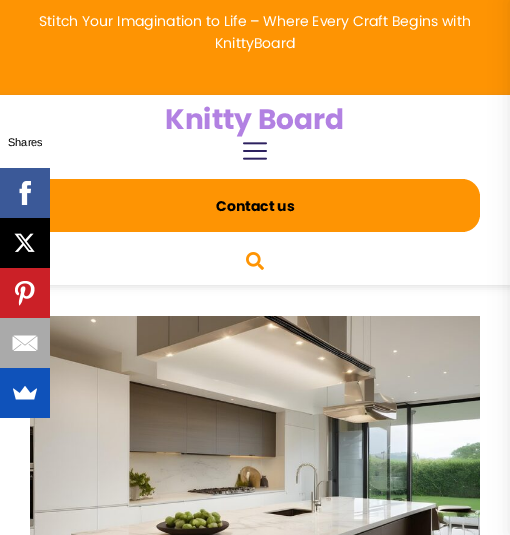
%!PS
<< /PageSize [510 535] /PageUsesTransparency true >> setpagedevice
/alpha { dup .setfillconstantalpha .setstrokeconstantalpha } def
/roundrect { 5 dict begin { /r /h /w /y /x } { exch def } forall
  x r add y moveto x w add y 2 copy h add r arct x w add y h add x 1 index r arct
  x y h add x y r arct x y 2 copy exch w add exch r arct closepath end } def
/shadow { 12 dict begin { /a /b /q /h /w /y /x } { exch def } forall gsave /was 0 def
  9 -2 -9 { dup b mul 4 div /e exch def 1 sub .425 mul 2.718 exch exp 1 add a .99 .min exch div /now exch def
    1 1 now sub 1 was sub div sub alpha /was now def
    w h .min e 2 mul add 0 gt { x e sub y e sub w e 2 mul add h e 2 mul add
      q e add b .6 mul add w h .min 2 div e add .min 0 .max roundrect fill } if } for grestore end } def
/picture { 5 dict begin { /h /w /y /x /name } { exch def } forall
  gsave x y translate w h scale
  w h 8 [w 0 0 h 0 0] name (r) file false 3 colorimage grestore end } def
0 .pushpdf14devicefilter
0 535 translate 1 -1 scale
4 setmiterlimit
1 setgray
0 0 510 535 rectfill
0.996 0.58 0.012 setrgbcolor
0 0 510 95 rectfill
gsave
newpath 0 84 moveto 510 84 lineto 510 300 lineto 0 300 lineto closepath 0 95 moveto 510 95 lineto 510 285 lineto 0 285 lineto closepath eoclip newpath
0.388 setgray
0 97 510 190 0 4 0.2 shadow
grestore
/LiberationSans-Regular [11 0 0 -11 0 0] selectfont
0 setgray
8 146 moveto (Shares) show
0.996 0.58 0.012 setrgbcolor
30 179 450 53 18 roundrect fill
0.231 0.349 0.596 setrgbcolor
0 168 50 50 rectfill
(img1.rgb) 19 181 12 24 picture
0 setgray
0 218 50 50 rectfill
(img2.rgb) 14 233 21 19 picture
(img6.rgb) 30 316 450 219 picture
0.796 0.125 0.153 setrgbcolor
0 268 50 50 rectfill
(img3.rgb) 15 281 20 25 picture
0.667 setgray
0 318 50 50 rectfill
(img4.rgb) 12 335 26 16 picture
0.059 0.322 0.729 setrgbcolor
0 368 50 50 rectfill
(img5.rgb) 13 386 24 14 picture
0.929 setgray
507 285 3 1 rectfill
0 setgray
510 0 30 535 0 10 0.1 shadow
/Poppins-Regular [14 0 0 -14 0 0] selectfont
1 setgray
39 26 moveto (Stitch Your Imagination to Life – Where Every Craft Begins with) show
215 48 moveto (KnittyBoard) show
/Poppins-Bold [28 0 0 -28 0 0] selectfont
0.698 0.506 0.886 setrgbcolor
165 129 moveto (Knitty Board) show
(img7.rgb) 243 142 24 18 picture
/Poppins-Bold [14 0 0 -14 0 0] selectfont
0 setgray
216 211 moveto (Contact us) show
(img8.rgb) 246 252 18 18 picture
.poppdf14devicefilter showpage
